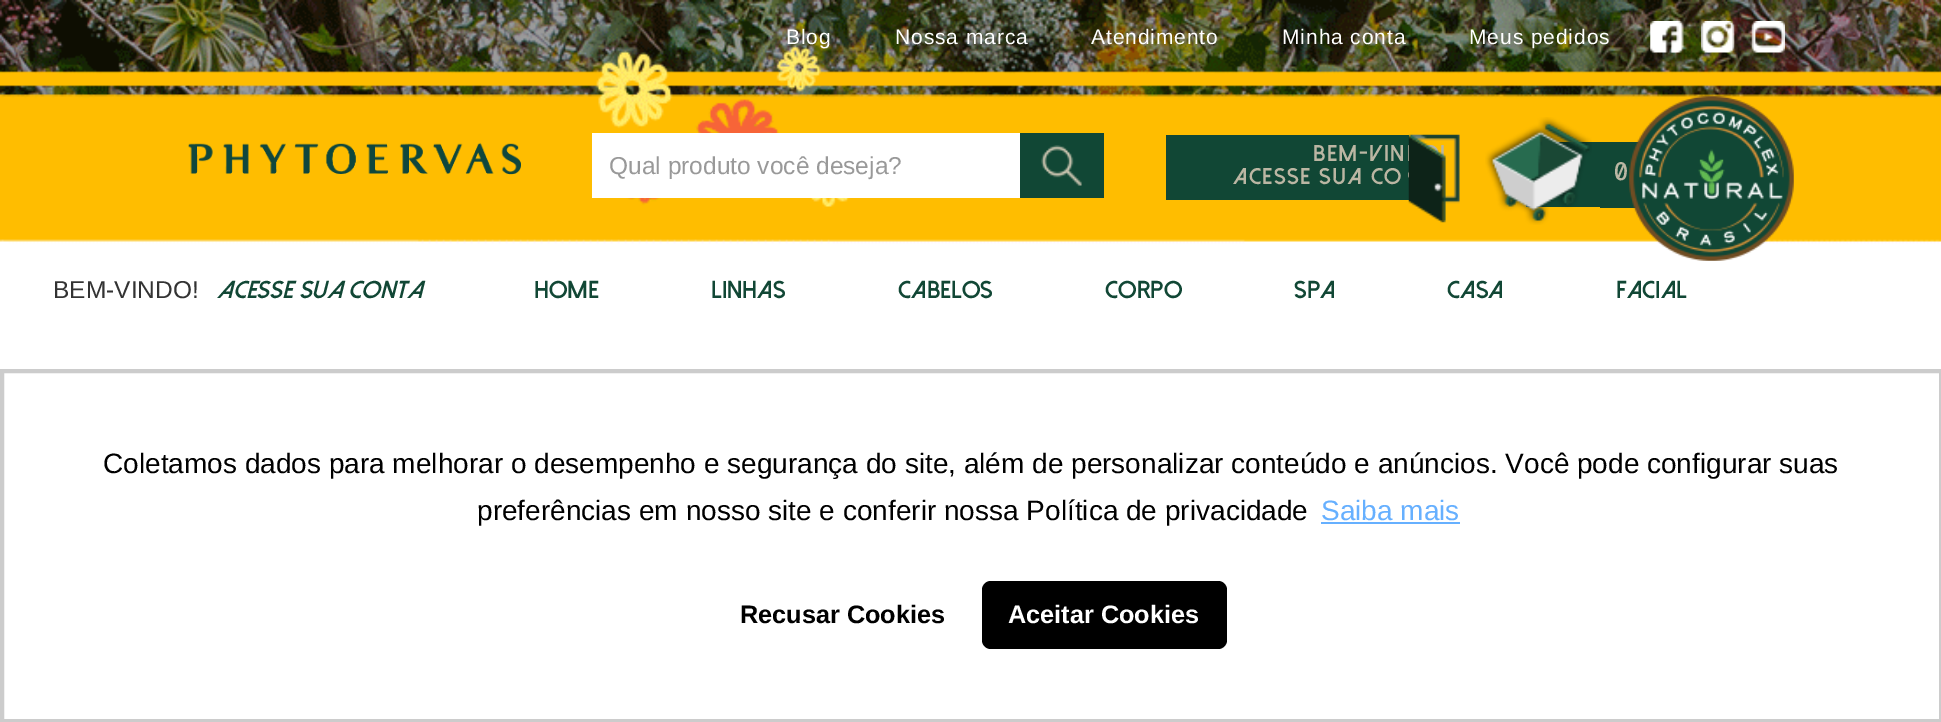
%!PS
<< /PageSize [1941 722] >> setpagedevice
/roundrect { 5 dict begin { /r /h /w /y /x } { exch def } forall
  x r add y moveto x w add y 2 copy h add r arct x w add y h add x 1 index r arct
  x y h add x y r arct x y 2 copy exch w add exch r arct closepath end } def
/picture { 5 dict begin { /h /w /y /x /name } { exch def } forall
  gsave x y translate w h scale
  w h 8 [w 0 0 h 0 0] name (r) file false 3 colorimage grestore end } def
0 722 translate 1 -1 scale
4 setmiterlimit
1 setgray
0 0 1941 722 rectfill
(img1.rgb) 0 0 1941 247 picture
/LiberationSans-Regular [21 0 0 -21 0 0] selectfont
786 44 moveto 0.9 0 (Blog) ashow
895 44 moveto 0.9 0 (Nossa marca) ashow
1091 44 moveto 0.9 0 (Atendimento) ashow
1282 44 moveto 0.9 0 (Minha conta) ashow
1469 44 moveto 0.9 0 (Meus pedidos) ashow
(img2.rgb) 1650 21 34 32 picture
(img3.rgb) 1701 21 34 32 picture
(img4.rgb) 1751 21 34 32 picture
(img5.rgb) 188 142 333 33 picture
592 133 428 65 rectfill
/LiberationSans-Regular [24.5 0 0 -24.5 0 0] selectfont
0.6 setgray
609 174 moveto (Qual produto você deseja?) show
0.067 0.278 0.208 setrgbcolor
1020 133 84 65 rectfill
(img6.rgb) 1041 145 41 41 picture
1166 135 243 65 rectfill
/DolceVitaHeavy-Bold [22.75 0 0 -22.75 0 0] selectfont
0.733 0.714 0.639 setrgbcolor
1313 161 moveto 1.4 0 (Bem-vin) ashow
1233 184 moveto 1.4 0 (Acesse sua co) ashow
(img7.rgb) 1408 134 52 89 picture
0.067 0.278 0.208 setrgbcolor
1526 142 74 65 rectfill
(img8.rgb) 1485 117 107 108 picture
1600 142 40 66 rectfill
/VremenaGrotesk-Regular [24.5 0 0 -24.5 0 0] selectfont
0.733 0.714 0.639 setrgbcolor
1614 180 moveto (0) show
(img9.rgb) 1629 96 165 165 picture
/LiberationSans-Regular [24.5 0 0 -24.5 0 0] selectfont
0.2 setgray
53 298 moveto (BEM-VINDO!) show
/DolceVitaHeavy-BoldItalic [24.5 0 0 -24.5 0 0] selectfont
0.067 0.278 0.208 setrgbcolor
217 298 moveto (ACESSE SUA CONTA) show
/DolceVitaHeavy-Bold [24.5 0 0 -24.5 0 0] selectfont
534 298 moveto (HOME) show
711 298 moveto (LINHAS) show
898 298 moveto (CABELOS) show
1105 298 moveto (CORPO) show
1294 298 moveto (SPA) show
1447 298 moveto (CASA) show
1616 298 moveto (FACIAL) show
0.8 setgray
4 setlinewidth
2 371 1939 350 rectstroke
/LiberationSans-Regular [28 0 0 -28 0 0] selectfont
0 setgray
103 473 moveto (Coletamos dados para melhorar o desempenho e segurança do site, além de personalizar conteúdo e anúncios. Você pode configurar suas) show
477 520 moveto (preferências em nosso site e conferir nossa Política de privacidade) show
0.4 0.69 1 setrgbcolor
1321 520 moveto (Saiba mais) show
1321 522 139 2 rectfill
/LiberationSans-Bold [25.25 0 0 -25.25 0 0] selectfont
0 setgray
740 623 moveto (Recusar Cookies) show
982 581 245 68 9 roundrect fill
1 setgray
1008 623 moveto (Aceitar Cookies) show
showpage
